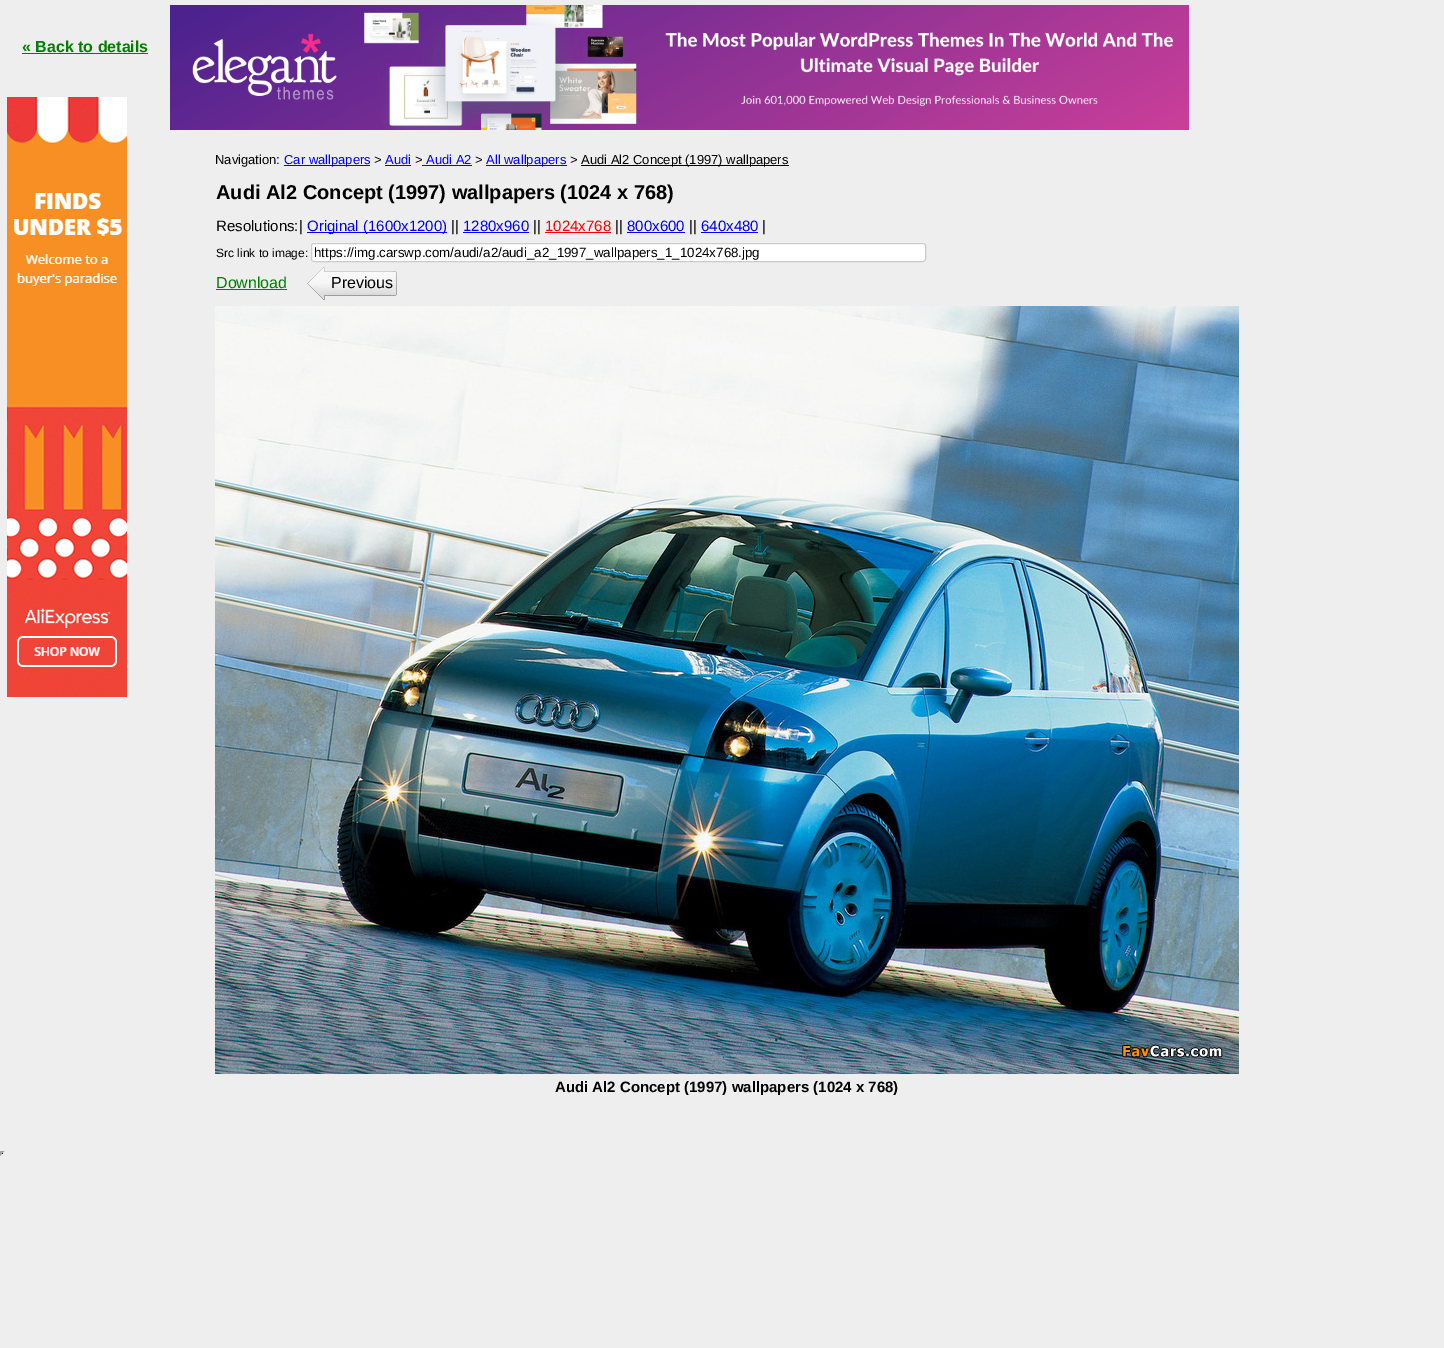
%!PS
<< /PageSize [1444 1348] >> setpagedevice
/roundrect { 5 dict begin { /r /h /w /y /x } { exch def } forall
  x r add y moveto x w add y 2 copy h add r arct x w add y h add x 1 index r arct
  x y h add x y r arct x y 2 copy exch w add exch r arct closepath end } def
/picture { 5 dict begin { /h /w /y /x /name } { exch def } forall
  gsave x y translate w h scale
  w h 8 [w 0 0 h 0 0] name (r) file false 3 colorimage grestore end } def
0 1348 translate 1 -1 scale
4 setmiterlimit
0.933 setgray
0 0 1444 1348 rectfill
(img1.rgb) 170 5 1019 125 picture
/LiberationSans-Bold [16 0 0 -16 0 0] selectfont
0 0.502 0 setrgbcolor
22 52 moveto (« Back to details) show
22 53 126 1 rectfill
(img2.rgb) 7 97 120 600 picture
/LiberationSans-Regular [13 0 0 -13 0 0] selectfont
0 setgray
215 164 moveto (Navigation:) show
0 0 1 setrgbcolor
284 165 86 1 rectfill
284 164 moveto (Car wallpapers) show
0 setgray
374 164 moveto (>) show
0 0 1 setrgbcolor
385 164 moveto (Audi) show
385 165 26 1 rectfill
0 setgray
415 164 moveto (>) show
0 0 1 setrgbcolor
426 164 moveto (Audi A2) show
422 165 50 1 rectfill
0 setgray
475 164 moveto (>) show
0 0 1 setrgbcolor
486 165 81 1 rectfill
486 164 moveto (All wallpapers) show
0 setgray
570 164 moveto (>) show
581 165 208 1 rectfill
581 164 moveto (Audi Al2 Concept \(1997\) wallpapers) show
/LiberationSans-Bold [20 0 0 -20 0 0] selectfont
216 199 moveto (Audi Al2 Concept \(1997\) wallpapers \(1024 x 768\)) show
/LiberationSans-Regular [15 0 0 -15 0 0] selectfont
216 231 moveto (Resolutions:|) show
0 0 1 setrgbcolor
307 232 140 1 rectfill
307 231 moveto (Original \(1600x1200\)) show
0 setgray
451 231 moveto (||) show
0 0 1 setrgbcolor
463 231 moveto (1280x960) show
463 232 66 1 rectfill
0 setgray
533 231 moveto (||) show
1 0 0 setrgbcolor
545 231 moveto (1024x768) show
545 232 66 1 rectfill
0 setgray
615 231 moveto (||) show
0 0 1 setrgbcolor
627 231 moveto (800x600) show
627 232 58 1 rectfill
0 setgray
689 231 moveto (||) show
0 0 1 setrgbcolor
701 231 moveto (640x480) show
701 232 57 1 rectfill
0 setgray
762 231 moveto (|) show
/LiberationSans-Regular [12 0 0 -12 0 0] selectfont
216 257 moveto (Src link to image:) show
1 setgray
311.5 243.5 614 18 2.5 roundrect gsave fill grestore
0.8 setgray
stroke
/LiberationSans-Regular [13.35 0 0 -13.35 0 0] selectfont
0 setgray
314 257 moveto (https://img.carswp.com/audi/a2/audi_a2_1997_wallpapers_1_1024x768.jpg) show
/LiberationSans-Regular [16 0 0 -16 0 0] selectfont
0 0.502 0 setrgbcolor
216 288 moveto (Download) show
216 289 71 1 rectfill
(img3.rgb) 307 267 90 33 picture
0 setgray
331 288 moveto (Previous) show
(img4.rgb) 215 306 1024 768 picture
/LiberationSans-Bold [15 0 0 -15 0 0] selectfont
555 1092 moveto (Audi Al2 Concept \(1997\) wallpapers \(1024 x 768\)) show
0.624 setgray
newpath 0 1151 moveto 5 1151 lineto 3 1153 lineto 2 1153 lineto closepath fill
0.933 setgray
newpath 5 1151 moveto 5 1156 lineto 3 1154 lineto 3 1153 lineto closepath fill
0.624 setgray
newpath 0 1156 moveto 0 1151 lineto 2 1153 lineto 2 1154 lineto closepath fill
0.098 setgray
2 1153 1 1 rectfill
showpage
